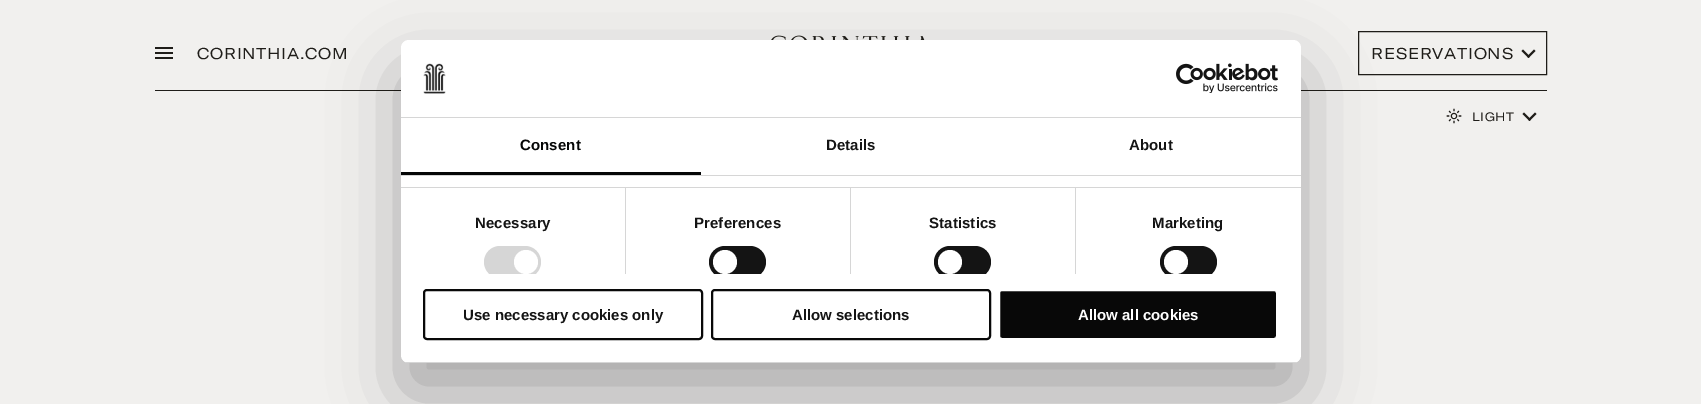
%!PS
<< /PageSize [1701 404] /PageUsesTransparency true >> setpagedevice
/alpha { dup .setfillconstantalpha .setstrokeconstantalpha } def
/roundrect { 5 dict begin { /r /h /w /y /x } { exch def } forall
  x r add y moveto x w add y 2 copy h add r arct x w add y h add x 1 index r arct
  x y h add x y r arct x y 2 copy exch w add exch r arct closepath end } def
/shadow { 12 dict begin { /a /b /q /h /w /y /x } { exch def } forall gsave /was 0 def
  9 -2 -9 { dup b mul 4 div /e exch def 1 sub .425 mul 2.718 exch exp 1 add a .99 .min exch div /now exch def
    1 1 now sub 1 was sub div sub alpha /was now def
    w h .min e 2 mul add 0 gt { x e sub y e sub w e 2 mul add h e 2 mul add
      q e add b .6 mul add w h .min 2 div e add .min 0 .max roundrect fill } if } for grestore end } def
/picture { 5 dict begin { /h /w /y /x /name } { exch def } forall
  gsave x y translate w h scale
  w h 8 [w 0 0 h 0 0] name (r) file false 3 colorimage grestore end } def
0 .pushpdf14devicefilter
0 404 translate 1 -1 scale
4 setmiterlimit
0.945 0.941 0.933 setrgbcolor
0 0 1701 404 rectfill
(img1.rgb) 771 35 154 5 picture
0.122 0.114 0.098 setrgbcolor
155 47 18 2 rectfill
155 52 18 2 rectfill
155 57 18 2 rectfill
/GTAmerica-Regular [15.5 0 0 -15.5 0 0] selectfont
197 59 moveto 0.75 0 (CORINTHIA.COM) ashow
1358.5 31.5 188 43 rectstroke
1371 59 moveto 0.75 0 (RESERVATIONS) ashow
newpath 1534 49.5 moveto 1535.5 51 lineto 1528.5 58 lineto 1527 56.5 lineto closepath fill
newpath 1523 49.5 moveto 1530 56.5 lineto 1528.5 58 lineto 1521.5 51 lineto closepath fill
155 90 1392 1 rectfill
(img2.rgb) 1446 108 16 16 picture
/GTAmerica-Regular [12 0 0 -12 0 0] selectfont
1472 121 moveto 0.5 0 (LIGHT) ashow
newpath 1535 112.5 moveto 1536.5 114 lineto 1529.5 121 lineto 1528 119.5 lineto closepath fill
newpath 1524 112.5 moveto 1531 119.5 lineto 1529.5 121 lineto 1522.5 114 lineto closepath fill
0 setgray
401 72 900 323 8 34 0.3 shadow
1 setgray
401 40 900 323 8 roundrect fill
0.839 setgray
401 117 900 1 rectfill
(img3.rgb) 423 63 23 31 picture
(img4.rgb) 1176 63 102 30 picture
401 175 900 1 rectfill
0.02 0.024 0.024 setrgbcolor
401 172 300 3 rectfill
/LiberationSans-Bold [15 0 0 -15 0 0] selectfont
520 150 moveto 0.1 0 (Consent) ashow
0.078 setgray
826 150 moveto 0.1 0 (Details) ashow
1129 150 moveto 0.1 0 (About) ashow
0.839 setgray
401 187 900 1 rectfill
625 188 1 86 rectfill
0.078 setgray
475 228 moveto 0.1 0 (Necessary) ashow
gsave
401 176 900 98 rectclip
0.839 setgray
484 246 57 32 16 roundrect fill
grestore
1 setgray
newpath 526 262 12 0 360 arc closepath fill
0.839 setgray
850 188 1 86 rectfill
0.078 setgray
694 228 moveto 0.1 0 (Preferences) ashow
gsave
401 176 900 98 rectclip
709 246 57 32 16 roundrect fill
grestore
1 setgray
newpath 725 262 12 0 360 arc closepath fill
0.839 setgray
1075 188 1 86 rectfill
0.078 setgray
929 228 moveto 0.1 0 (Statistics) ashow
gsave
401 176 900 98 rectclip
934 246 57 32 16 roundrect fill
grestore
1 setgray
newpath 950 262 12 0 360 arc closepath fill
0.078 setgray
1152 228 moveto 0.1 0 (Marketing) ashow
gsave
401 176 900 98 rectclip
1160 246 57 32 16 roundrect fill
grestore
1 setgray
newpath 1176 262 12 0 360 arc closepath fill
gsave
401 40 900 323 8 roundrect clip newpath
0.839 setgray
401 362 900 1 rectfill
grestore
0.035 setgray
2 setlinewidth
424 290 278 49 3 roundrect stroke
0.078 setgray
463 320 moveto (Use necessary cookies only) show
0.035 setgray
712 290 278 49 3 roundrect stroke
0.078 setgray
792 320 moveto (Allow selections) show
0.031 setgray
999 290 278 49 3 roundrect gsave fill grestore
1 setgray
stroke
1078 320 moveto (Allow all cookies) show
.poppdf14devicefilter showpage
